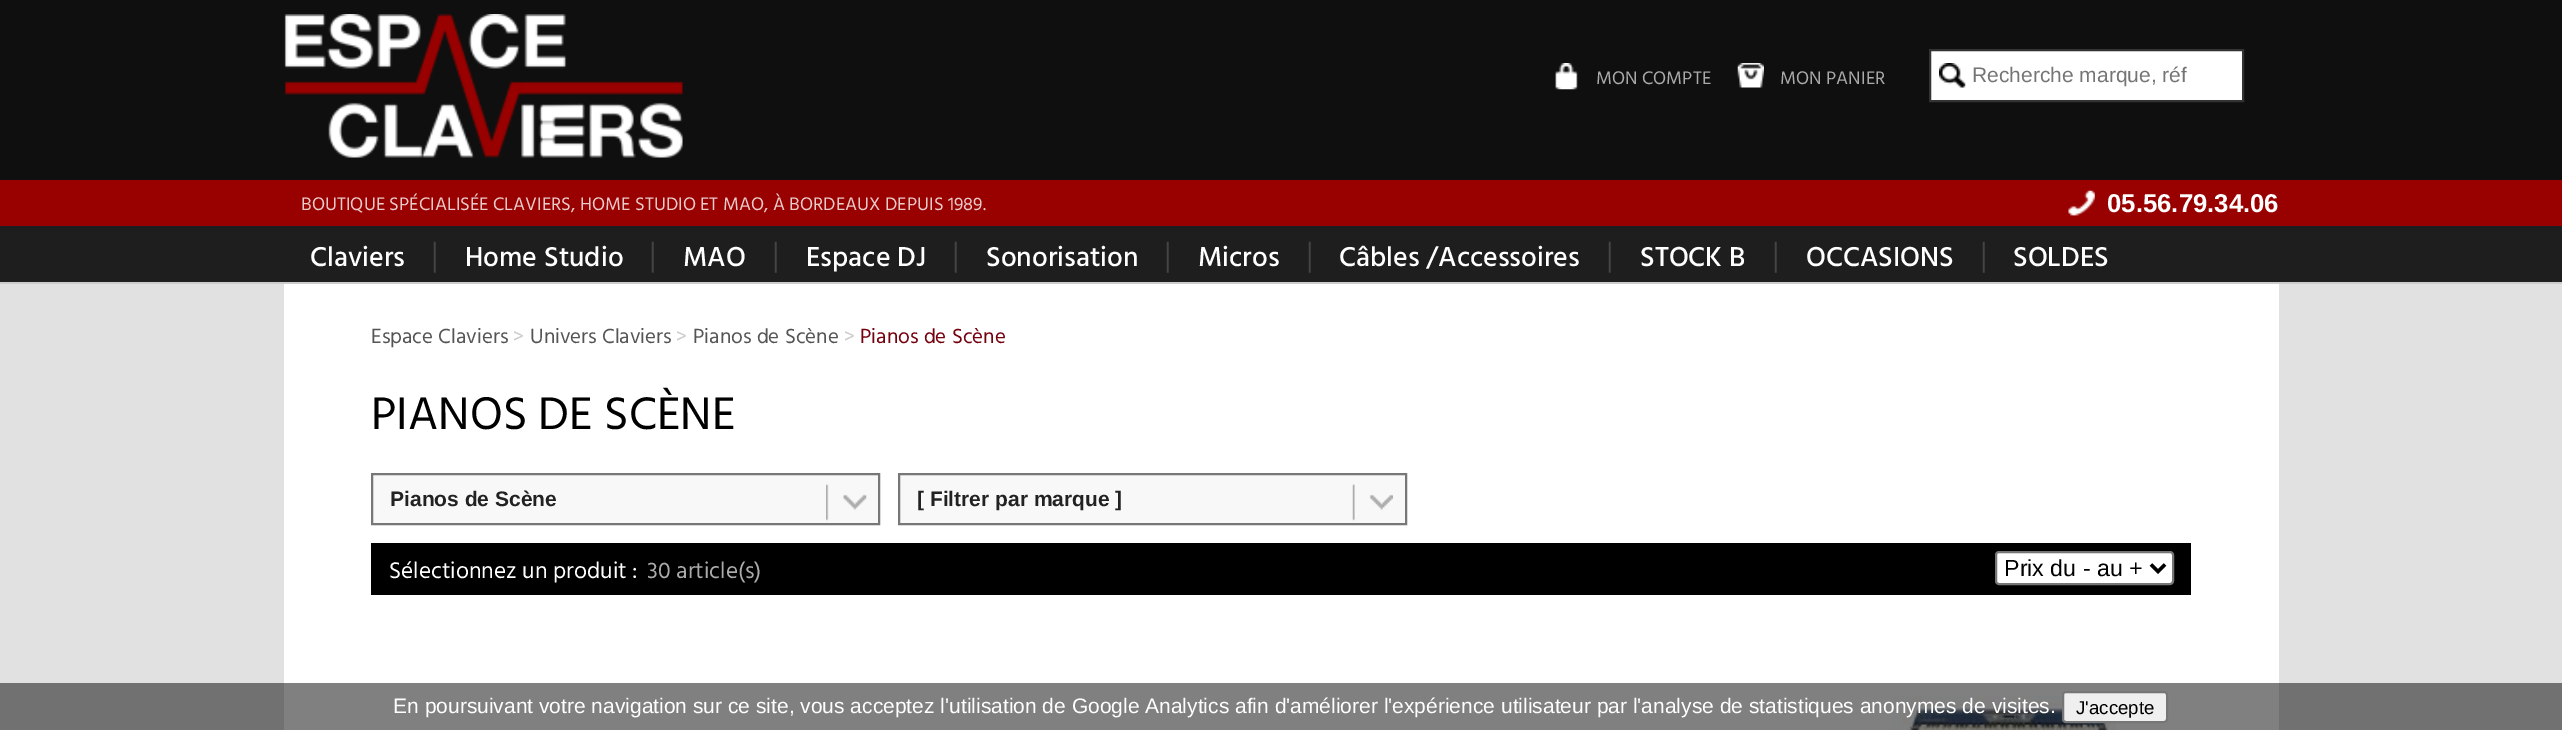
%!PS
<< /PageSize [2562 730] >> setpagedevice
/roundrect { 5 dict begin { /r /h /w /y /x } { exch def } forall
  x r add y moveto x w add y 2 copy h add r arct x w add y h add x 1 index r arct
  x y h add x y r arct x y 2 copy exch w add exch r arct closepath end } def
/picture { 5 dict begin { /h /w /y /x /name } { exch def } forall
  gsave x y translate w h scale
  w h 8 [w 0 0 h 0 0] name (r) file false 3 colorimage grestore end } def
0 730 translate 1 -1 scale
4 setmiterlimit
0.059 setgray
0 0 2562 730 rectfill
(img1.rgb) 284 14 399 144 picture
(img2.rgb) 1555 63 23 27 picture
/HindVadodara-Regular [18.65 0 0 -18.65 0 0] selectfont
0.667 setgray
1596 84 moveto (MON COMPTE) show
(img3.rgb) 1737 63 27 25 picture
1780 84 moveto (MON PANIER) show
1 setgray
1931 51 311 49 rectfill
(img4.rgb) 1939 63 27 25 picture
0.2 setgray
2 setlinewidth
1930 50 313 51 rectstroke
/LiberationSans-Regular [21 0 0 -21 0 0] selectfont
0.459 setgray
1972 82 moveto (Recherche marque, réf) show
0.6 0 0 setrgbcolor
0 180 2562 46 rectfill
/HindVadodara-Regular [18.65 0 0 -18.65 0 0] selectfont
0.922 0.8 0.8 setrgbcolor
301 210 moveto (BOUTIQUE SPÉCIALISÉE CLAVIERS, HOME STUDIO ET MAO, À BORDEAUX DEPUIS 1989.) show
(img5.rgb) 2068 190 27 26 picture
/LiberationSans-Bold [25.75 0 0 -25.75 0 0] selectfont
1 setgray
2107 212 moveto (05.56.79.34.06) show
0.118 setgray
0 226 2562 56 rectfill
0.8 setgray
0 282 2562 2 rectfill
/HindVadodara-Medium [28 0 0 -28 0 0] selectfont
1 setgray
310 266 moveto (Claviers) show
/HindVadodara-Light [35 0 0 -35 0 0] selectfont
0.267 setgray
431 266 moveto (|) show
/HindVadodara-Medium [28 0 0 -28 0 0] selectfont
1 setgray
465 266 moveto (Home Studio) show
/HindVadodara-Light [35 0 0 -35 0 0] selectfont
0.267 setgray
649 266 moveto (|) show
/HindVadodara-Medium [28 0 0 -28 0 0] selectfont
1 setgray
683 266 moveto (MAO) show
/HindVadodara-Light [35 0 0 -35 0 0] selectfont
0.267 setgray
772 266 moveto (|) show
/HindVadodara-Medium [28 0 0 -28 0 0] selectfont
1 setgray
806 266 moveto (Espace DJ) show
/HindVadodara-Light [35 0 0 -35 0 0] selectfont
0.267 setgray
952 266 moveto (|) show
/HindVadodara-Medium [28 0 0 -28 0 0] selectfont
1 setgray
986 266 moveto (Sonorisation) show
/HindVadodara-Light [35 0 0 -35 0 0] selectfont
0.267 setgray
1164 266 moveto (|) show
/HindVadodara-Medium [28 0 0 -28 0 0] selectfont
1 setgray
1198 266 moveto (Micros) show
/HindVadodara-Light [35 0 0 -35 0 0] selectfont
0.267 setgray
1306 266 moveto (|) show
/HindVadodara-Medium [28 0 0 -28 0 0] selectfont
1 setgray
1339 266 moveto (Câbles /Accessoires) show
/HindVadodara-Light [35 0 0 -35 0 0] selectfont
0.267 setgray
1606 266 moveto (|) show
/HindVadodara-Medium [28 0 0 -28 0 0] selectfont
1 setgray
1640 266 moveto (STOCK B) show
/HindVadodara-Light [35 0 0 -35 0 0] selectfont
0.267 setgray
1772 266 moveto (|) show
/HindVadodara-Medium [28 0 0 -28 0 0] selectfont
1 setgray
1806 266 moveto (OCCASIONS) show
/HindVadodara-Light [35 0 0 -35 0 0] selectfont
0.267 setgray
1980 266 moveto (|) show
/HindVadodara-Medium [28 0 0 -28 0 0] selectfont
1 setgray
2013 266 moveto (SOLDES) show
0.882 setgray
0 284 2562 399 rectfill
0.443 setgray
0 683 2562 47 rectfill
1 setgray
284 284 1995 399 rectfill
0.502 setgray
284 683 1995 47 rectfill
/HindVadodara-Regular [21 0 0 -21 0 0] selectfont
0.333 setgray
371 343 moveto (Espace Claviers) show
0.8 setgray
513 343 moveto (>) show
0.333 setgray
530 343 moveto (Univers Claviers) show
0.8 setgray
676 343 moveto (>) show
0.333 setgray
693 343 moveto (Pianos de Scène) show
0.8 setgray
844 343 moveto (>) show
0.459 0.004 0.055 setrgbcolor
860 343 moveto (Pianos de Scène) show
/HindVadodara-Regular [46.75 0 0 -46.75 0 0] selectfont
0 setgray
371 429 moveto (PIANOS DE SCÈNE) show
0.973 setgray
newpath 372 474 moveto 879 474 lineto 879 524 lineto 372 524 lineto closepath gsave fill grestore
0.467 setgray
stroke
/LiberationSans-Bold [21 0 0 -21 0 0] selectfont
0.133 setgray
390 506 moveto (Pianos de Scène) show
(img6.rgb) 826 484 41 37 picture
0.973 setgray
newpath 899 474 moveto 1406 474 lineto 1406 524 lineto 899 524 lineto closepath gsave fill grestore
0.467 setgray
stroke
0.133 setgray
917 506 moveto ([ Filtrer par marque ]) show
(img7.rgb) 1352 484 41 37 picture
0 setgray
371 543 1820 52 rectfill
/HindVadodara-Regular [23.25 0 0 -23.25 0 0] selectfont
1 setgray
389 578 moveto (Sélectionnez un produit :) show
0.667 setgray
647 578 moveto (30 article\(s\)) show
1 setgray
1996 552 177 32 3 roundrect gsave fill grestore
0.463 setgray
stroke
0 setgray
3.5 setlinewidth
newpath 2151 564.5 moveto 2158 571.5 lineto 2165 564.5 lineto stroke
/LiberationSans-Regular [23.25 0 0 -23.25 0 0] selectfont
2004 576 moveto (Prix du - au +) show
(img8.rgb) 1893 696 223 34 picture
/LiberationSans-Regular [21 0 0 -21 0 0] selectfont
1 setgray
393 713 moveto (En poursuivant votre navigation sur ce site, vous acceptez l'utilisation de Google Analytics afin d'améliorer l'expérience utilisateur par l'analyse de statistiques anonymes de visites.) show
0.937 setgray
2063 692 104 30 3 roundrect gsave fill grestore
0.463 setgray
2 setlinewidth
stroke
/LiberationSans-Regular [18.65 0 0 -18.65 0 0] selectfont
0 setgray
2076 714 moveto (J'accepte) show
showpage
